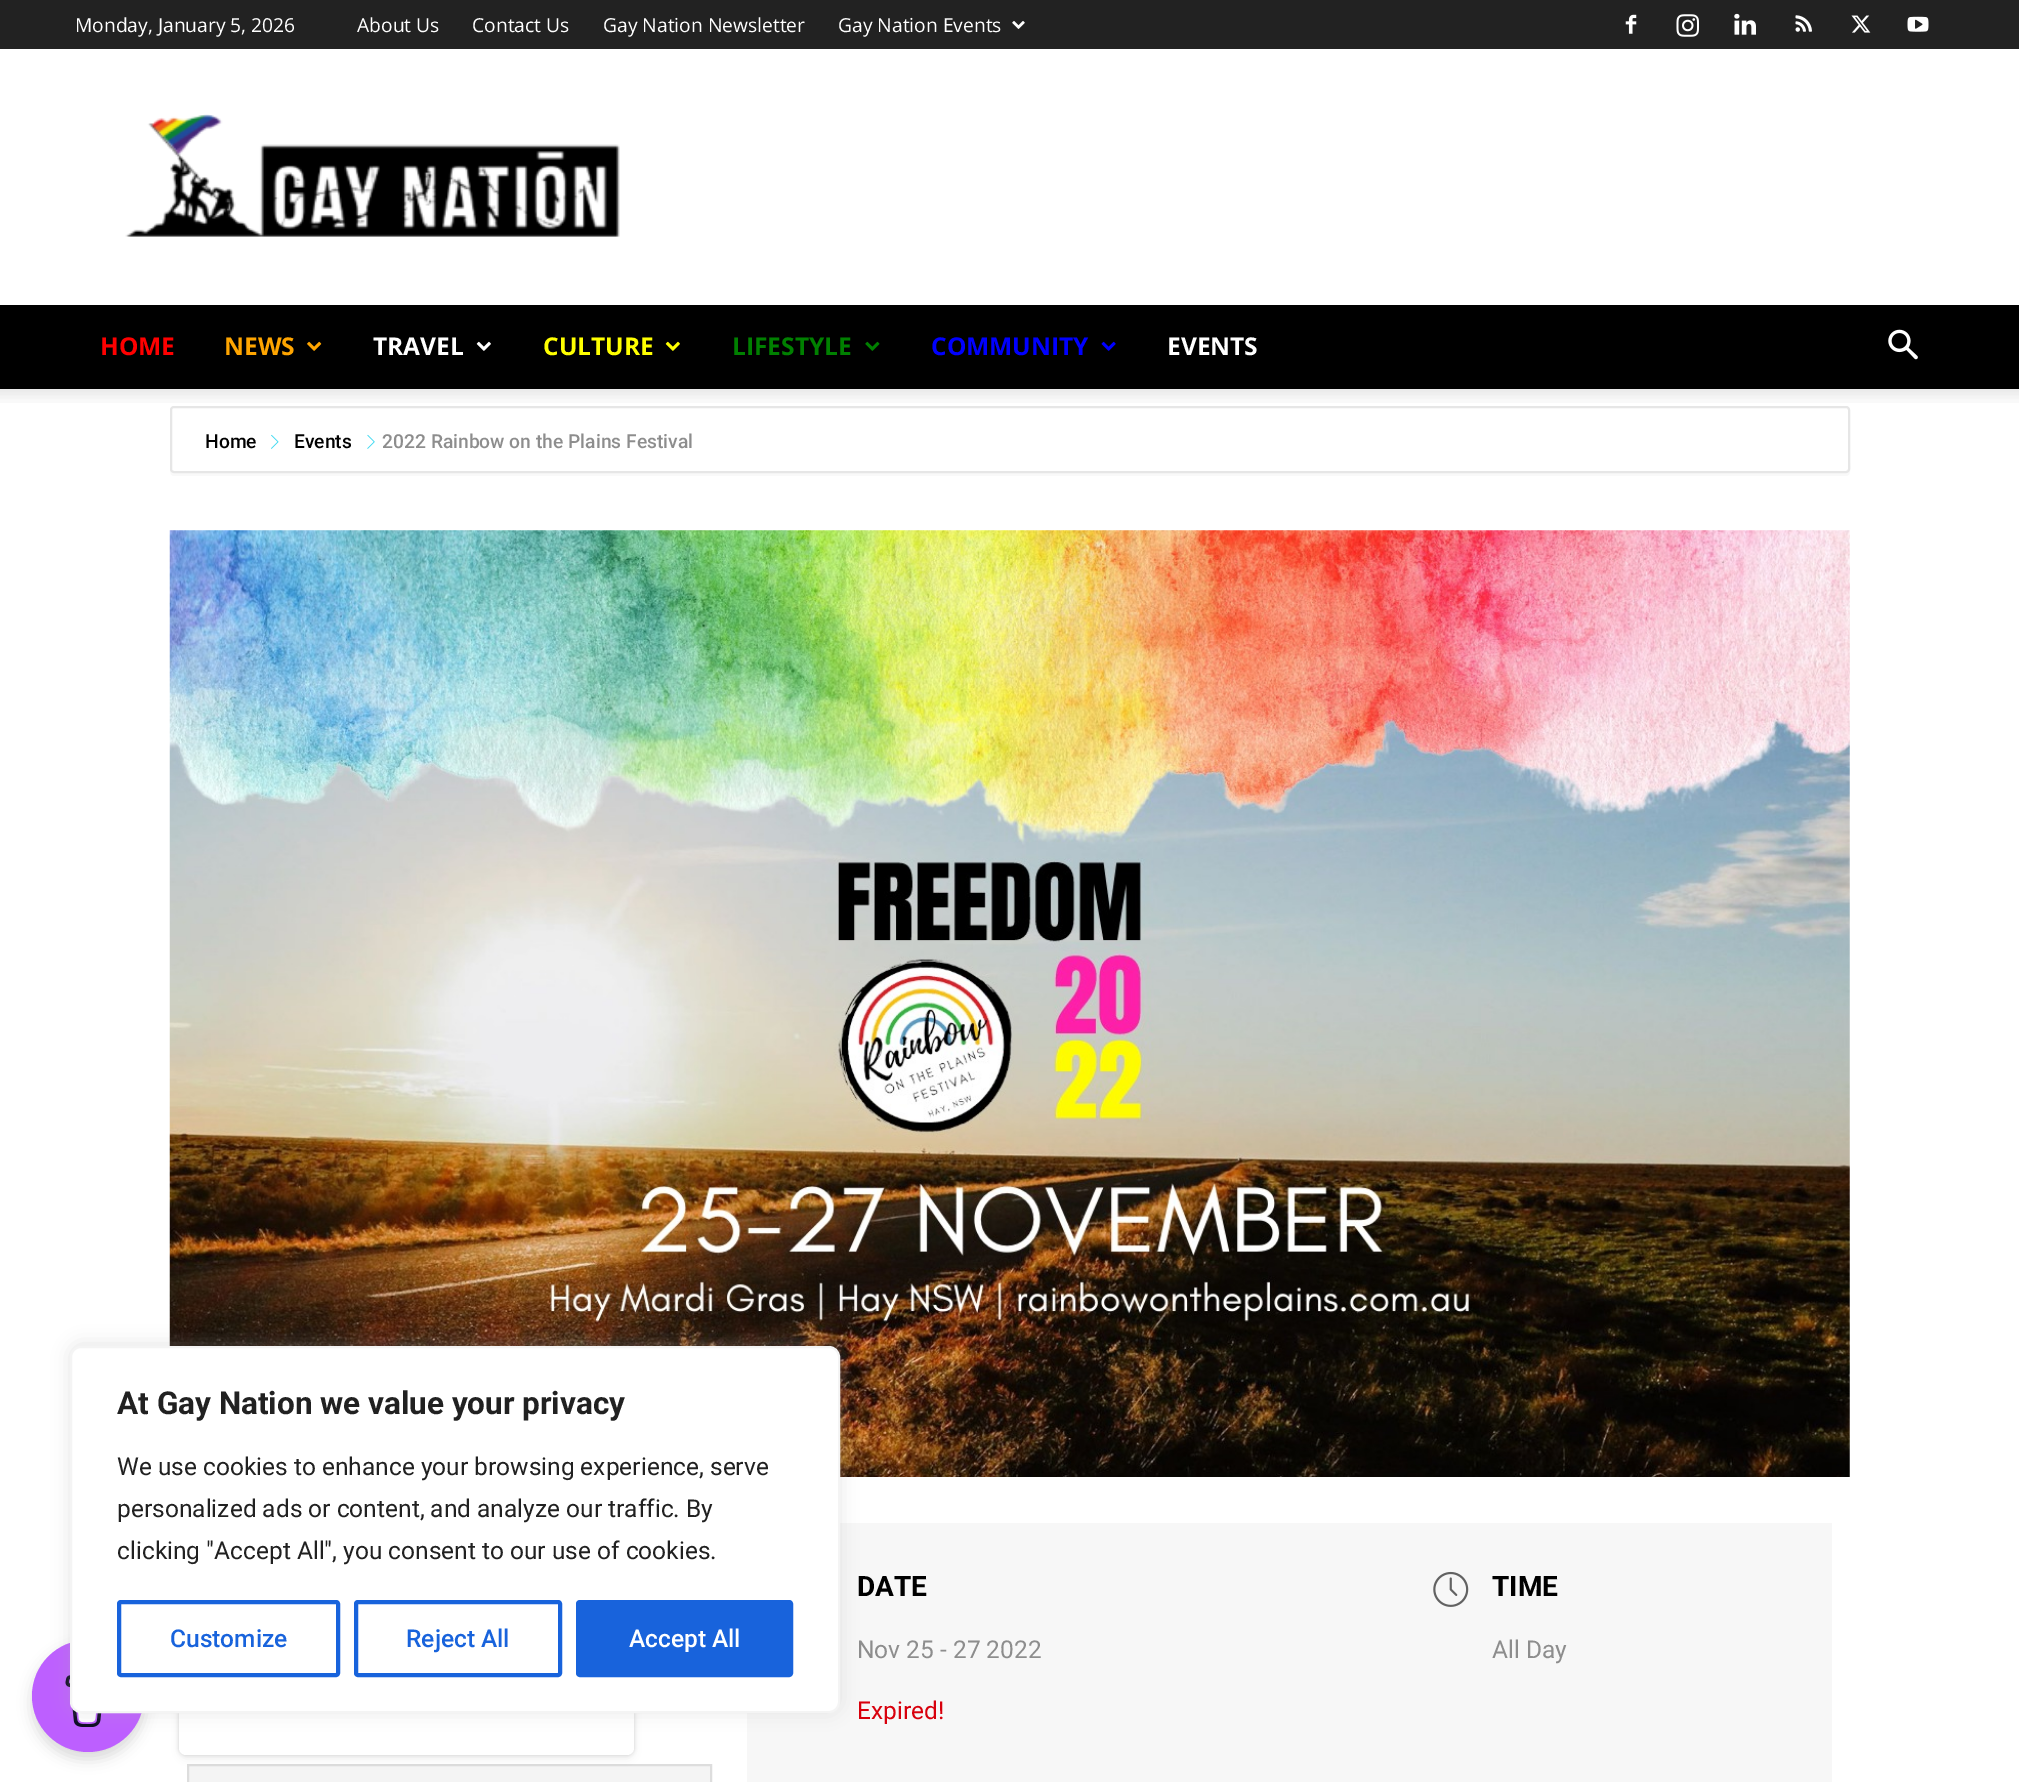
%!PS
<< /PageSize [2019 1782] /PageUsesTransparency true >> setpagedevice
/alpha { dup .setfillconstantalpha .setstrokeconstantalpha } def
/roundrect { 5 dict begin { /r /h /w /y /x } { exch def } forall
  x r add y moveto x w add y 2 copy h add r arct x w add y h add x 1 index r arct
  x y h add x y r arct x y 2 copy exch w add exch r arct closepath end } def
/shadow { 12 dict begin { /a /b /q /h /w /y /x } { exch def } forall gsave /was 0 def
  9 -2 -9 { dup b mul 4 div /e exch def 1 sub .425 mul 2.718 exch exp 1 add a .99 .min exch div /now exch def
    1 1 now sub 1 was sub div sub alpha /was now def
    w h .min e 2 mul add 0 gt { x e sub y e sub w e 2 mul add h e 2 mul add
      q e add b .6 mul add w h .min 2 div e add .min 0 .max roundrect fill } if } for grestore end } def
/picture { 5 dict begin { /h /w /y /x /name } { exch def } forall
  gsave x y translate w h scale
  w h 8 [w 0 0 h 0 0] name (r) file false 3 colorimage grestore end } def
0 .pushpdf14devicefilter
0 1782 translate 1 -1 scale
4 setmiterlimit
1 setgray
0 0 2019 1782 rectfill
0.133 setgray
0 0 2019 49 rectfill
/OpenSans-Regular [19.25 0 0 -19.25 0 0] selectfont
1 setgray
75 32 moveto (Monday, January 5, 2026) show
357 32 moveto (About Us) show
472 32 moveto (Contact Us) show
603 32 moveto (Gay Nation Newsletter) show
838 32 moveto (Gay Nation Events) show
(img1.rgb) 1012 21 13 8 picture
(img2.rgb) 1625 14 12 20 picture
(img3.rgb) 1676 14 23 23 picture
(img4.rgb) 1734 13 22 22 picture
(img5.rgb) 1795 15 17 17 picture
(img6.rgb) 1851 15 20 18 picture
(img7.rgb) 1907 16 22 16 picture
(img8.rgb) 125 114 495 123 picture
0 setgray
0 305 2019 84 rectfill
/OpenSans-Bold [24.5 0 0 -24.5 0 0] selectfont
1 0 0 setrgbcolor
100 355 moveto (HOME) show
1 0.647 0 setrgbcolor
224 355 moveto (NEWS) show
(img9.rgb) 307 341 15 10 picture
1 setgray
373 355 moveto (TRAVEL) show
(img10.rgb) 476 341 15 10 picture
1 1 0 setrgbcolor
543 355 moveto (CULTURE) show
(img11.rgb) 665 341 15 10 picture
0 0.502 0 setrgbcolor
732 355 moveto (LIFESTYLE) show
(img12.rgb) 865 341 15 10 picture
0 0 1 setrgbcolor
931 355 moveto (COMMUNITY) show
(img13.rgb) 1101 341 15 10 picture
1 setgray
1167 355 moveto (EVENTS) show
(img14.rgb) 1888 329 30 31 picture
(img15.rgb) 0 389 2019 14 picture
0.976 setgray
newpath 170 470 moveto 170 473 171 476 174 476 curveto 1846 476 lineto 1852 476 1850 465 1850 462 curveto 1850 413 lineto 1850 469 lineto 1850 471 1848 472 1846 472 curveto 173 472 lineto 172 472 171 472 170 470 curveto closepath fill
0.902 setgray
2 setlinewidth
171 407 1678 65 3 roundrect stroke
/Roboto-Medium [19.25 0 0 -19.25 0 0] selectfont
0 setgray
205 448 moveto (Home) show
(img16.rgb) 271 434 8 15 picture
294 448 moveto (Events) show
(img17.rgb) 367 434 8 15 picture
0.553 setgray
382 448 moveto (2022 Rainbow on the Plains Festival) show
(img18.rgb) 169 530 1681 947 picture
0.969 setgray
747 1523 1085 259 rectfill
/Roboto-Bold [28 0 0 -28 0 0] selectfont
0 setgray
857 1596 moveto (DATE) show
/Roboto-Regular [24.5 0 0 -24.5 0 0] selectfont
0.553 setgray
857 1658 moveto (Nov 25 - 27 2022) show
0.847 0 0.047 setrgbcolor
857 1719 moveto (Expired!) show
(img19.rgb) 1433 1571 36 36 picture
/Roboto-Bold [28 0 0 -28 0 0] selectfont
0 setgray
1492 1596 moveto (TIME) show
/Roboto-Regular [24.5 0 0 -24.5 0 0] selectfont
0.553 setgray
1492 1658 moveto (All Day) show
0.957 setgray
newpath 188 1765 moveto 711 1765 lineto 711 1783 lineto 188 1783 lineto closepath gsave fill grestore
0.867 setgray
stroke
0 setgray
32 1647 112 112 56 7 0.15 shadow
0.741 0.373 1 setrgbcolor
newpath 88 1696 56 0 360 arc closepath fill
(img20.rgb) 65 1675 37 52 picture
0 setgray
179 1605 455 150 7 2 0.15 shadow
179 1608 455 151 7 4.5 0.05 shadow
1 setgray
179 1605 455 150 7 roundrect fill
0.675 0.671 0.671 setrgbcolor
70 1344 770 368 11 9 0.3 shadow
1 setgray
71 1347 768 365 10 roundrect gsave fill grestore
0.957 setgray
stroke
/Roboto-Bold [31.5 0 0 -31.5 0 0] selectfont
0.129 setgray
117 1414 moveto (At Gay Nation we value your privacy) show
/Roboto-Regular [24.5 0 0 -24.5 0 0] selectfont
117 1475 moveto (We use cookies to enhance your browsing experience, serve) show
117 1517 moveto (personalized ads or content, and analyze our traffic. By) show
117 1559 moveto (clicking "Accept All", you consent to our use of cookies.) show
0.094 0.388 0.863 setrgbcolor
4 setlinewidth
119 1602 219 73 2 roundrect stroke
/Roboto-Medium [24.5 0 0 -24.5 0 0] selectfont
170 1647 moveto (Customize) show
356 1602 204 73 2 roundrect stroke
406 1647 moveto (Reject All) show
578 1602 213 73 2 roundrect gsave fill grestore
stroke
1 setgray
629 1647 moveto (Accept All) show
.poppdf14devicefilter showpage
